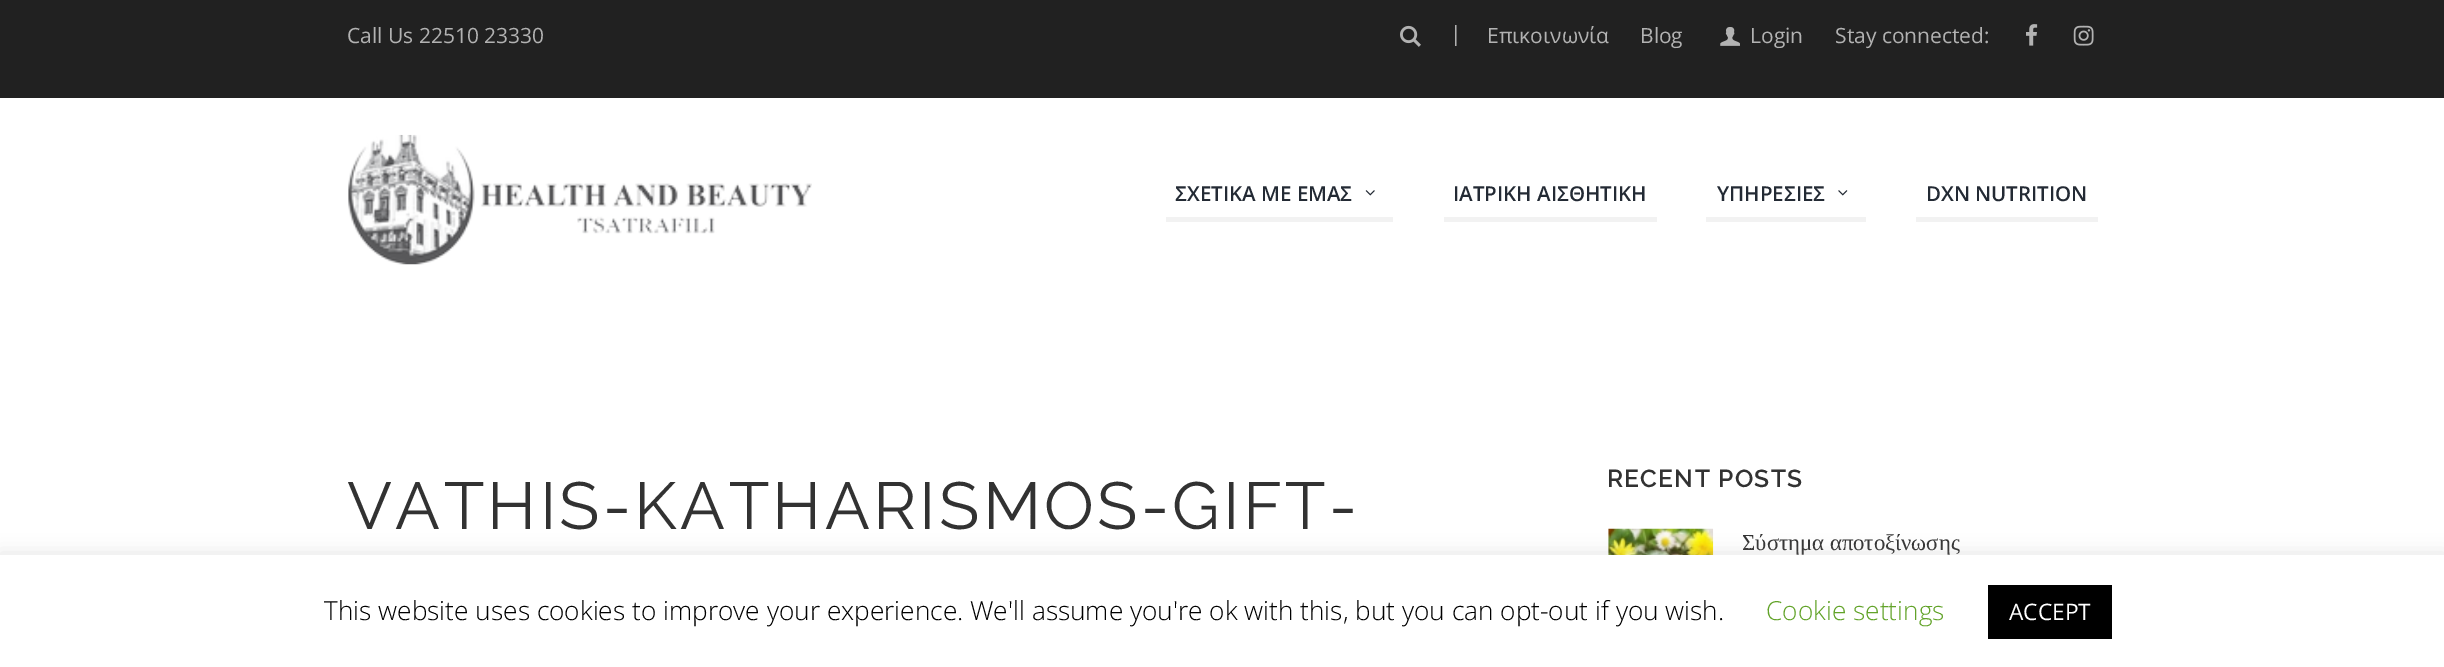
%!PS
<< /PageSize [2444 667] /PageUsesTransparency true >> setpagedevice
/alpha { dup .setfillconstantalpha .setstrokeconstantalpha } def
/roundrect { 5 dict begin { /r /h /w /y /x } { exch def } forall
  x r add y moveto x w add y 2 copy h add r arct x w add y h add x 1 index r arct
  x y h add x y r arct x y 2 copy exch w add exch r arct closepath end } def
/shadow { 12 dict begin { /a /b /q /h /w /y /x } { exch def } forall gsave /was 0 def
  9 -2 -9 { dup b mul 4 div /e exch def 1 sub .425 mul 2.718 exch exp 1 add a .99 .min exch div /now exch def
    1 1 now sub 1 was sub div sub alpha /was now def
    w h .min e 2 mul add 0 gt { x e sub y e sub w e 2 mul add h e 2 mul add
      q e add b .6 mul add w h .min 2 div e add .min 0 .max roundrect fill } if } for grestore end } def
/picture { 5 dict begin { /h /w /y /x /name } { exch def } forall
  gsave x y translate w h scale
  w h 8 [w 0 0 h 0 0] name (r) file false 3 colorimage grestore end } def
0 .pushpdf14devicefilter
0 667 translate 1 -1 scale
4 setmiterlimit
1 setgray
0 0 2444 667 rectfill
0.129 setgray
0 0 2444 98 rectfill
/OpenSans-Regular [21 0 0 -21 0 0] selectfont
0.698 setgray
347 43 moveto (Call Us 22510 23330) show
(img1.rgb) 1400 25 21 22 picture
1450 41 moveto (|) show
1487 43 moveto (Επικοινωνία) show
1640 43 moveto (Blog) show
(img2.rgb) 1720 27 20 19 picture
1750 43 moveto (Login) show
1835 43 moveto (Stay connected:) show
(img3.rgb) 2026 24 12 22 picture
(img4.rgb) 2073 25 21 21 picture
(img5.rgb) 348 134 464 131 picture
0.949 setgray
1166 217 227 5 rectfill
/OpenSans-SemiBold [20.5 0 0 -20.5 0 0] selectfont
0.137 0.165 0.204 setrgbcolor
1175 201 moveto (ΣΧΕΤΙΚΑ ΜΕ ΕΜΑΣ) show
(img6.rgb) 1365 190 10 6 picture
0.949 setgray
1444 217 213 5 rectfill
0.137 0.165 0.204 setrgbcolor
1453 201 moveto (ΙΑΤΡΙΚΗ ΑΙΣΘΗΤΙΚΗ) show
0.949 setgray
1706 217 160 5 rectfill
0.137 0.165 0.204 setrgbcolor
1717 201 moveto (ΥΠΗΡΕΣΙΕΣ) show
(img7.rgb) 1838 190 10 6 picture
0.949 setgray
1916 217 182 5 rectfill
0.137 0.165 0.204 setrgbcolor
1926 201 moveto (DXN NUTRITION) show
/Raleway-Regular [66.4 0 0 -66.4 0 0] selectfont
0.196 setgray
347 529 moveto 3.3 0 (VATHIS-KATHARISMOS-GIFT-) ashow
/Raleway-SemiBold [24.5 0 0 -24.5 0 0] selectfont
1607 487 moveto 1.25 0 (RECENT POSTS) ashow
(img8.rgb) 1608 528 106 27 picture
/LiberationSerif-Regular [22.75 0 0 -22.75 0 0] selectfont
1742 550 moveto (Σύστημα αποτοξίνωσης) show
0.675 0.671 0.671 setrgbcolor
0 553 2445 114 0 9 0.3 shadow
1 setgray
0 555 2444 112 rectfill
/OpenSans-Light [26.25 0 0 -26.25 0 0] selectfont
0 setgray
324 620 moveto (This website uses cookies to improve your experience. We'll assume you're ok with this, but you can opt-out if you wish.) show
0.384 0.639 0.161 setrgbcolor
1766 620 moveto (Cookie settings) show
0 setgray
1988 585 124 54 rectfill
/OpenSans-Regular [22.75 0 0 -22.75 0 0] selectfont
1 setgray
2009 620 moveto (ACCEPT) show
.poppdf14devicefilter showpage
